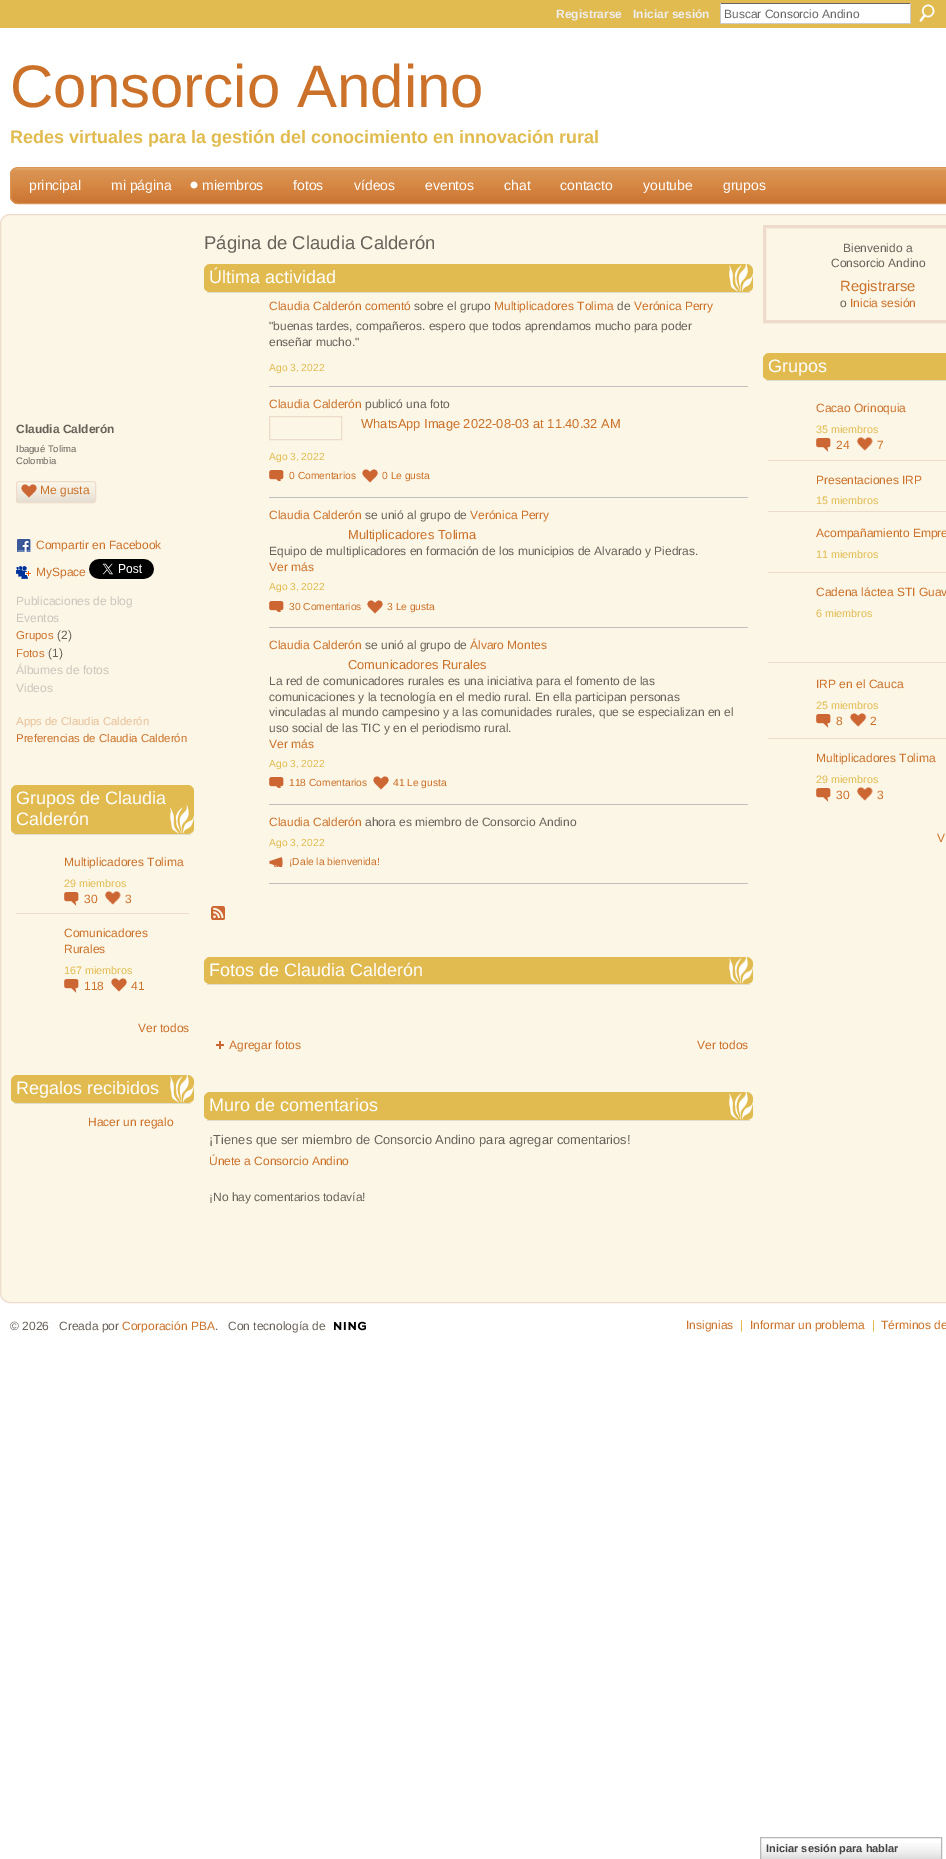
%!PS
<< /PageSize [946 1859] >> setpagedevice
/roundrect { 5 dict begin { /r /h /w /y /x } { exch def } forall
  x r add y moveto x w add y 2 copy h add r arct x w add y h add x 1 index r arct
  x y h add x y r arct x y 2 copy exch w add exch r arct closepath end } def
/picture { 5 dict begin { /h /w /y /x /name } { exch def } forall
  gsave x y translate w h scale
  w h 8 [w 0 0 h 0 0] name (r) file false 3 colorimage grestore end } def
0 1859 translate 1 -1 scale
4 setmiterlimit
1 setgray
0 0 946 1859 rectfill
0.882 0.733 0.31 setrgbcolor
0 0 946 28 rectfill
/LiberationSans-Bold [12 0 0 -12 0 0] selectfont
0.933 setgray
556 18 moveto (Registrarse) show
633 18 moveto (Iniciar sesión) show
1 setgray
721 4 189 19 rectfill
0.4 setgray
720 3 191 1 rectfill
0.8 setgray
910 3 1 21 rectfill
720 23 191 1 rectfill
720 3 1 21 rectfill
/LiberationSans-Regular [12 0 0 -12 0 0] selectfont
0.4 setgray
724 18 moveto (Buscar Consorcio Andino) show
(img1.rgb) 919 4 16 18 picture
/LiberationSans-Regular [60 0 0 -60 0 0] selectfont
0.796 0.443 0.161 setrgbcolor
10 107 moveto (Consorcio Andino) show
/LiberationSans-Bold [18 0 0 -18 0 0] selectfont
0.882 0.733 0.306 setrgbcolor
10 143 moveto (Redes virtuales para la gestión del conocimiento en innovación rural) show
(img2.rgb) 10 168 936 36 picture
0.855 0.58 0.325 setrgbcolor
10.5 167.5 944 36 7.5 roundrect stroke
/LiberationSans-Regular [14 0 0 -14 0 0] selectfont
1 setgray
29 190 moveto (principal) show
111 190 moveto (mi página) show
(img3.rgb) 190 181 8 8 picture
202 190 moveto (miembros) show
293 190 moveto (fotos) show
354 190 moveto (vídeos) show
425 190 moveto (eventos) show
504 190 moveto (chat) show
560 190 moveto (contacto) show
643 190 moveto (youtube) show
723 190 moveto (grupos) show
0.988 0.965 0.902 setrgbcolor
0.5 214.5 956 1088 9.5 roundrect gsave fill grestore
0.933 0.859 0.796 setrgbcolor
stroke
/LiberationSans-Bold [12 0 0 -12 0 0] selectfont
0.412 0.38 0.353 setrgbcolor
16 433 moveto (Claudia Calderón) show
/LiberationSans-Regular [9.5 0 0 -9.5 0 0] selectfont
16 452 moveto (Ibagué Tolima) show
16 464 moveto (Colombia) show
(img4.rgb) 16 484 80 19 picture
0.933 0.859 0.796 setrgbcolor
16.5 481.5 79 21 2.5 roundrect stroke
(img5.rgb) 21 484 16 14 picture
/LiberationSans-Regular [12 0 0 -12 0 0] selectfont
0.796 0.443 0.161 setrgbcolor
40 494 moveto (Me gusta) show
(img6.rgb) 17 539 14 13 picture
36 549 moveto (Compartir en Facebook) show
(img7.rgb) 16 566 16 13 picture
36 576 moveto (MySpace) show
(img8.rgb) 89 559 65 20 picture
0.792 0.776 0.741 setrgbcolor
16 605 moveto (Publicaciones de blog) show
16 622 moveto (Eventos) show
/LiberationSans-Regular [11.4 0 0 -11.4 0 0] selectfont
0.796 0.443 0.161 setrgbcolor
16 639 moveto (Grupos) show
/LiberationSans-Regular [12 0 0 -12 0 0] selectfont
0.412 0.38 0.353 setrgbcolor
57 639 moveto (\(2\)) show
/LiberationSans-Regular [11.4 0 0 -11.4 0 0] selectfont
0.796 0.443 0.161 setrgbcolor
16 657 moveto (Fotos) show
/LiberationSans-Regular [12 0 0 -12 0 0] selectfont
0.412 0.38 0.353 setrgbcolor
48 657 moveto (\(1\)) show
0.792 0.776 0.741 setrgbcolor
16 674 moveto (Álbumes de fotos) show
16 692 moveto (Videos) show
/LiberationSans-Regular [11.4 0 0 -11.4 0 0] selectfont
0.91 0.757 0.604 setrgbcolor
16 725 moveto (Apps de Claudia Calderón) show
0.796 0.443 0.161 setrgbcolor
16 742 moveto (Preferencias de Claudia Calderón) show
0.882 0.733 0.31 setrgbcolor
newpath 17 785 moveto 188 785 lineto 191 785 194 788 194 791 curveto 194 829 lineto 194 832 191 834 188 834 curveto 17 834 lineto 14 834 11 832 11 829 curveto 11 791 lineto 11 788 14 785 17 785 curveto closepath fill
(img9.rgb) 170 805 24 29 picture
0.875 0.867 0.796 setrgbcolor
14 834 177 1 rectfill
/LiberationSans-Regular [18 0 0 -18 0 0] selectfont
1 setgray
16 804 moveto (Grupos de Claudia) show
16 825 moveto (Calderón) show
0.933 0.859 0.796 setrgbcolor
16 913 173 1 rectfill
/LiberationSans-Regular [12 0 0 -12 0 0] selectfont
0.796 0.443 0.161 setrgbcolor
64 866 moveto (Multiplicadores Tolima) show
/LiberationSans-Regular [10.75 0 0 -10.75 0 0] selectfont
0.882 0.733 0.306 setrgbcolor
64 887 moveto (29 miembros) show
(img10.rgb) 64 892 15 14 picture
/LiberationSans-Regular [12 0 0 -12 0 0] selectfont
0.796 0.443 0.161 setrgbcolor
84 903 moveto (30) show
(img11.rgb) 104 891 17 14 picture
125 903 moveto (3) show
64 937 moveto (Comunicadores) show
64 953 moveto (Rurales) show
/LiberationSans-Regular [10.75 0 0 -10.75 0 0] selectfont
0.882 0.733 0.306 setrgbcolor
64 974 moveto (167 miembros) show
(img10.rgb) 64 979 15 14 picture
/LiberationSans-Regular [12 0 0 -12 0 0] selectfont
0.796 0.443 0.161 setrgbcolor
84 990 moveto (118) show
(img12.rgb) 111 978 16 14 picture
131 990 moveto (41) show
138 1032 moveto (Ver todos) show
0.882 0.733 0.31 setrgbcolor
newpath 17 1075 moveto 188 1075 lineto 191 1075 194 1078 194 1081 curveto 194 1098 lineto 194 1101 191 1103 188 1103 curveto 17 1103 lineto 14 1103 11 1101 11 1098 curveto 11 1081 lineto 11 1078 14 1075 17 1075 curveto closepath fill
(img13.rgb) 170 1075 24 28 picture
0.875 0.867 0.796 setrgbcolor
14 1103 177 1 rectfill
/LiberationSans-Regular [18 0 0 -18 0 0] selectfont
1 setgray
16 1094 moveto (Regalos recibidos) show
/LiberationSans-Regular [12 0 0 -12 0 0] selectfont
0.796 0.443 0.161 setrgbcolor
88 1126 moveto (Hacer un regalo) show
/LiberationSans-Regular [18.5 0 0 -18.5 0 0] selectfont
0.412 0.38 0.353 setrgbcolor
204 249 moveto (Página de Claudia Calderón) show
0.882 0.733 0.31 setrgbcolor
newpath 210 264 moveto 747 264 lineto 750 264 753 267 753 270 curveto 753 287 lineto 753 290 750 292 747 292 curveto 210 292 lineto 207 292 204 290 204 287 curveto 204 270 lineto 204 267 207 264 210 264 curveto closepath fill
(img13.rgb) 729 264 24 28 picture
0.875 0.867 0.796 setrgbcolor
207 292 543 1 rectfill
/LiberationSans-Regular [18 0 0 -18 0 0] selectfont
1 setgray
209 283 moveto (Última actividad) show
0.753 setgray
269 386 479 1 rectfill
/LiberationSans-Regular [12 0 0 -12 0 0] selectfont
0.796 0.443 0.161 setrgbcolor
269 310 moveto (Claudia Calderón comentó) show
0.412 0.38 0.353 setrgbcolor
414 310 moveto (sobre el grupo) show
0.796 0.443 0.161 setrgbcolor
494 310 moveto (Multiplicadores Tolima) show
0.412 0.38 0.353 setrgbcolor
617 310 moveto (de) show
0.796 0.443 0.161 setrgbcolor
634 310 moveto (Verónica Perry) show
0.412 0.38 0.353 setrgbcolor
269 330 moveto ("buenas tardes, compañeros. espero que todos aprendamos mucho para poder) show
269 346 moveto (enseñar mucho.") show
/LiberationSans-Regular [10.25 0 0 -10.25 0 0] selectfont
0.882 0.733 0.306 setrgbcolor
269 371 moveto (Ago 3, 2022) show
0.753 setgray
269 497 479 1 rectfill
/LiberationSans-Regular [12 0 0 -12 0 0] selectfont
0.796 0.443 0.161 setrgbcolor
269 408 moveto (Claudia Calderón) show
0.412 0.38 0.353 setrgbcolor
365 408 moveto (publicó una foto) show
0.933 0.859 0.796 setrgbcolor
269.5 416.5 72 23 rectstroke
/LiberationSans-Regular [12.9 0 0 -12.9 0 0] selectfont
0.796 0.443 0.161 setrgbcolor
361 428 moveto (WhatsApp Image 2022-08-03 at 11.40.32 AM) show
/LiberationSans-Regular [10.25 0 0 -10.25 0 0] selectfont
0.882 0.733 0.306 setrgbcolor
269 460 moveto (Ago 3, 2022) show
(img14.rgb) 269 470 15 11 picture
0.796 0.443 0.161 setrgbcolor
289 479 moveto (0 Comentarios) show
(img12.rgb) 362 469 16 14 picture
382 479 moveto (0 Le gusta) show
0.753 setgray
269 627 479 1 rectfill
/LiberationSans-Regular [12 0 0 -12 0 0] selectfont
0.796 0.443 0.161 setrgbcolor
269 519 moveto (Claudia Calderón) show
0.412 0.38 0.353 setrgbcolor
365 519 moveto (se unió al grupo de) show
0.796 0.443 0.161 setrgbcolor
470 519 moveto (Verónica Perry) show
/LiberationSans-Regular [12.9 0 0 -12.9 0 0] selectfont
348 539 moveto (Multiplicadores Tolima) show
/LiberationSans-Regular [12 0 0 -12 0 0] selectfont
0.412 0.38 0.353 setrgbcolor
269 555 moveto (Equipo de multiplicadores en formación de los municipios de Alvarado y Piedras.) show
0.796 0.443 0.161 setrgbcolor
269 571 moveto (Ver más) show
/LiberationSans-Regular [10.25 0 0 -10.25 0 0] selectfont
0.882 0.733 0.306 setrgbcolor
269 590 moveto (Ago 3, 2022) show
(img14.rgb) 269 601 15 11 picture
0.796 0.443 0.161 setrgbcolor
289 610 moveto (30 Comentarios) show
(img12.rgb) 367 600 16 14 picture
387 610 moveto (3 Le gusta) show
0.753 setgray
269 804 479 1 rectfill
/LiberationSans-Regular [12 0 0 -12 0 0] selectfont
0.796 0.443 0.161 setrgbcolor
269 649 moveto (Claudia Calderón) show
0.412 0.38 0.353 setrgbcolor
365 649 moveto (se unió al grupo de) show
0.796 0.443 0.161 setrgbcolor
470 649 moveto (Álvaro Montes) show
/LiberationSans-Regular [12.9 0 0 -12.9 0 0] selectfont
348 669 moveto (Comunicadores Rurales) show
/LiberationSans-Regular [12 0 0 -12 0 0] selectfont
0.412 0.38 0.353 setrgbcolor
269 685 moveto (La red de comunicadores rurales es una iniciativa para el fomento de las) show
269 701 moveto (comunicaciones y la tecnología en el medio rural. En ella participan personas) show
269 716 moveto (vinculadas al mundo campesino y a las comunidades rurales, que se especializan en el) show
269 732 moveto (uso social de las TIC y en el periodismo rural.) show
0.796 0.443 0.161 setrgbcolor
269 748 moveto (Ver más) show
/LiberationSans-Regular [10.25 0 0 -10.25 0 0] selectfont
0.882 0.733 0.306 setrgbcolor
269 767 moveto (Ago 3, 2022) show
(img14.rgb) 269 777 15 11 picture
0.796 0.443 0.161 setrgbcolor
289 786 moveto (118 Comentarios) show
(img12.rgb) 373 776 16 14 picture
393 786 moveto (41 Le gusta) show
0.753 setgray
269 883 479 1 rectfill
/LiberationSans-Regular [12 0 0 -12 0 0] selectfont
0.796 0.443 0.161 setrgbcolor
269 826 moveto (Claudia Calderón) show
0.412 0.38 0.353 setrgbcolor
365 826 moveto (ahora es miembro de Consorcio Andino) show
/LiberationSans-Regular [10.25 0 0 -10.25 0 0] selectfont
0.882 0.733 0.306 setrgbcolor
269 846 moveto (Ago 3, 2022) show
(img15.rgb) 269 857 14 10 picture
0.796 0.443 0.161 setrgbcolor
289 865 moveto (¡Dale la bienvenida!) show
(img16.rgb) 211 906 14 14 picture
0.882 0.733 0.31 setrgbcolor
newpath 210 957 moveto 747 957 lineto 750 957 753 960 753 963 curveto 753 979 lineto 753 982 750 984 747 984 curveto 210 984 lineto 207 984 204 982 204 979 curveto 204 963 lineto 204 960 207 957 210 957 curveto closepath fill
(img17.rgb) 729 957 24 27 picture
0.875 0.867 0.796 setrgbcolor
207 984 543 1 rectfill
/LiberationSans-Regular [18 0 0 -18 0 0] selectfont
1 setgray
209 976 moveto (Fotos de Claudia Calderón) show
(img18.rgb) 216 1041 8 8 picture
/LiberationSans-Regular [12 0 0 -12 0 0] selectfont
0.796 0.443 0.161 setrgbcolor
229 1049 moveto (Agregar fotos) show
697 1049 moveto (Ver todos) show
0.882 0.733 0.31 setrgbcolor
newpath 210 1092 moveto 747 1092 lineto 750 1092 753 1095 753 1098 curveto 753 1115 lineto 753 1118 750 1120 747 1120 curveto 210 1120 lineto 207 1120 204 1118 204 1115 curveto 204 1098 lineto 204 1095 207 1092 210 1092 curveto closepath fill
(img13.rgb) 729 1092 24 28 picture
0.875 0.867 0.796 setrgbcolor
207 1120 543 1 rectfill
/LiberationSans-Regular [18 0 0 -18 0 0] selectfont
1 setgray
209 1111 moveto (Muro de comentarios) show
/LiberationSans-Regular [12.9 0 0 -12.9 0 0] selectfont
0.412 0.38 0.353 setrgbcolor
209 1144 moveto (¡Tienes que ser miembro de Consorcio Andino para agregar comentarios!) show
/LiberationSans-Regular [12 0 0 -12 0 0] selectfont
0.796 0.443 0.161 setrgbcolor
209 1165 moveto (Únete a Consorcio Andino) show
0.412 0.38 0.353 setrgbcolor
209 1201 moveto (¡No hay comentarios todavía!) show
0.933 0.859 0.796 setrgbcolor
3 setlinewidth
764.5 226.5 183 95 rectstroke
0.412 0.38 0.353 setrgbcolor
843 252 moveto (Bienvenido a) show
831 267 moveto (Consorcio Andino) show
/LiberationSans-Regular [14.75 0 0 -14.75 0 0] selectfont
0.796 0.443 0.161 setrgbcolor
840 291 moveto (Registrarse) show
/LiberationSans-Regular [12 0 0 -12 0 0] selectfont
0.412 0.38 0.353 setrgbcolor
840 307 moveto (o) show
0.796 0.443 0.161 setrgbcolor
850 307 moveto (Inicia sesión) show
0.882 0.733 0.31 setrgbcolor
newpath 769 353 moveto 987 353 lineto 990 353 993 356 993 359 curveto 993 375 lineto 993 378 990 380 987 380 curveto 769 380 lineto 766 380 763 378 763 375 curveto 763 359 lineto 763 356 766 353 769 353 curveto closepath fill
0.875 0.867 0.796 setrgbcolor
766 380 180 1 rectfill
/LiberationSans-Regular [18 0 0 -18 0 0] selectfont
1 setgray
768 372 moveto (Grupos) show
0.933 0.859 0.796 setrgbcolor
768 460 178 1 rectfill
/LiberationSans-Regular [12 0 0 -12 0 0] selectfont
0.796 0.443 0.161 setrgbcolor
816 412 moveto (Cacao Orinoquia) show
/LiberationSans-Regular [10.75 0 0 -10.75 0 0] selectfont
0.882 0.733 0.306 setrgbcolor
816 433 moveto (35 miembros) show
(img10.rgb) 816 438 15 14 picture
/LiberationSans-Regular [12 0 0 -12 0 0] selectfont
0.796 0.443 0.161 setrgbcolor
836 449 moveto (24) show
(img11.rgb) 856 437 17 14 picture
877 449 moveto (7) show
0.933 0.859 0.796 setrgbcolor
768 511 178 1 rectfill
0.796 0.443 0.161 setrgbcolor
816 484 moveto (Presentaciones IRP) show
/LiberationSans-Regular [10.75 0 0 -10.75 0 0] selectfont
0.882 0.733 0.306 setrgbcolor
816 504 moveto (15 miembros) show
0.933 0.859 0.796 setrgbcolor
768 572 178 1 rectfill
/LiberationSans-Regular [12 0 0 -12 0 0] selectfont
0.796 0.443 0.161 setrgbcolor
816 537 moveto (Acompañamiento Empre) show
/LiberationSans-Regular [10.75 0 0 -10.75 0 0] selectfont
0.882 0.733 0.306 setrgbcolor
816 558 moveto (11 miembros) show
0.933 0.859 0.796 setrgbcolor
768 662 178 1 rectfill
/LiberationSans-Regular [12 0 0 -12 0 0] selectfont
0.796 0.443 0.161 setrgbcolor
816 596 moveto (Cadena láctea STI Guav) show
/LiberationSans-Regular [10.75 0 0 -10.75 0 0] selectfont
0.882 0.733 0.306 setrgbcolor
816 617 moveto (6 miembros) show
0.933 0.859 0.796 setrgbcolor
768 738 178 1 rectfill
/LiberationSans-Regular [12 0 0 -12 0 0] selectfont
0.796 0.443 0.161 setrgbcolor
816 688 moveto (IRP en el Cauca) show
/LiberationSans-Regular [10.75 0 0 -10.75 0 0] selectfont
0.882 0.733 0.306 setrgbcolor
816 709 moveto (25 miembros) show
(img10.rgb) 816 714 15 14 picture
/LiberationSans-Regular [12 0 0 -12 0 0] selectfont
0.796 0.443 0.161 setrgbcolor
836 725 moveto (8) show
(img19.rgb) 850 713 17 14 picture
870 725 moveto (2) show
816 762 moveto (Multiplicadores Tolima) show
/LiberationSans-Regular [10.75 0 0 -10.75 0 0] selectfont
0.882 0.733 0.306 setrgbcolor
816 783 moveto (29 miembros) show
(img10.rgb) 816 788 15 14 picture
/LiberationSans-Regular [12 0 0 -12 0 0] selectfont
0.796 0.443 0.161 setrgbcolor
836 799 moveto (30) show
(img11.rgb) 856 787 17 14 picture
877 799 moveto (3) show
937 842 moveto (V) show
0.412 0.38 0.353 setrgbcolor
10 1330 moveto (© 2026) show
59 1330 moveto (Creada por) show
0.796 0.443 0.161 setrgbcolor
122 1330 moveto (Corporación PBA) show
0.412 0.38 0.353 setrgbcolor
215 1330 moveto (.) show
228 1330 moveto (Con tecnología de) show
(img20.rgb) 334 1321 32 10 picture
0.796 0.443 0.161 setrgbcolor
686 1329 moveto (Insignias) show
0.882 0.733 0.306 setrgbcolor
740 1329 moveto (|) show
0.796 0.443 0.161 setrgbcolor
750 1329 moveto (Informar un problema) show
0.882 0.733 0.306 setrgbcolor
872 1329 moveto (|) show
0.796 0.443 0.161 setrgbcolor
881 1329 moveto (Términos de) show
(img21.rgb) 761 1843 180 16 picture
0.718 setgray
1 setlinewidth
760.5 1837.5 181 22 rectstroke
/LiberationSans-Bold [11 0 0 -11 0 0] selectfont
0.271 setgray
766 1852 moveto (Iniciar sesión para hablar) show
showpage
